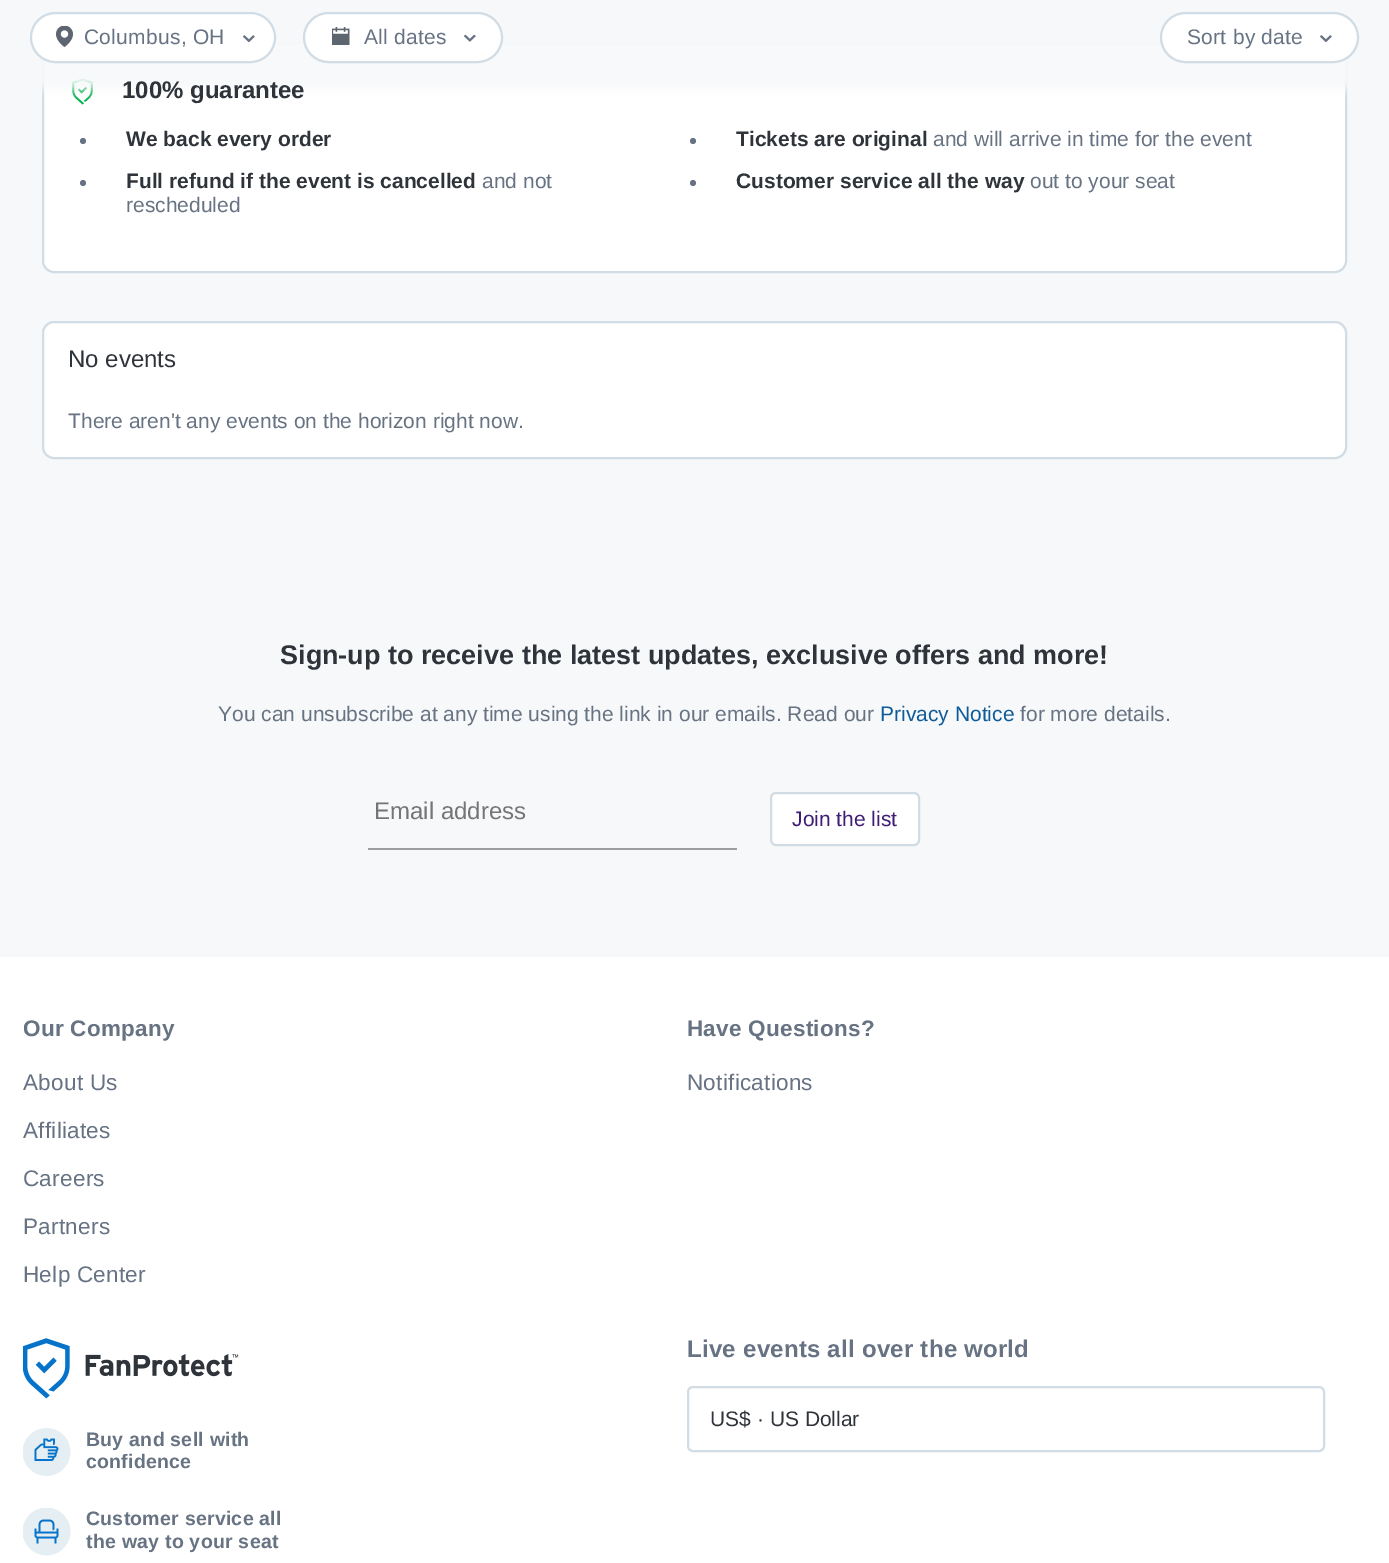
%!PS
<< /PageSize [1389 1563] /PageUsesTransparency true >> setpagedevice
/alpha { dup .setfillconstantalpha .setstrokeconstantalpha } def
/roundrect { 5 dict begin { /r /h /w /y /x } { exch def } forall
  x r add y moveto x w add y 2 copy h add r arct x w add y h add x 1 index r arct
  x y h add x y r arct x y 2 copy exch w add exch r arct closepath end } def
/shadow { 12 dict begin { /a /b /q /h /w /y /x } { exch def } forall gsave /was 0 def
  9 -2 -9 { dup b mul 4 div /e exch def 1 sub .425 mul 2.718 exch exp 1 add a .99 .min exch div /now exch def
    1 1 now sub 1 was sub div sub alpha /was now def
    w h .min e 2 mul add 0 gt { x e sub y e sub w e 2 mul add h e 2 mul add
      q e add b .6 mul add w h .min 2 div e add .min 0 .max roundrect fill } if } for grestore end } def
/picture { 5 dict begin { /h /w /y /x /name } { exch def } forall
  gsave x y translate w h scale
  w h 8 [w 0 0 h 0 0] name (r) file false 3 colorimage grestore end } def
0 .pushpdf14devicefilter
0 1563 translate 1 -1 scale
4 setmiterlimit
0.965 0.973 0.976 setrgbcolor
0 0 1389 1563 rectfill
1 setgray
43 43 1303 229 11 roundrect gsave fill grestore
0.82 0.863 0.898 setrgbcolor
2 setlinewidth
stroke
(img6.rgb) 72 78 21 27 picture
0.965 0.973 0.976 setrgbcolor
30 12 1329 77 0 6 1 shadow
1 setgray
31 13 244 49 24.5 roundrect gsave fill grestore
0.82 0.863 0.898 setrgbcolor
stroke
(img1.rgb) 56 26 17 21 picture
/LiberationSans-Regular [21 0 0 -21 0 0] selectfont
0.404 0.451 0.514 setrgbcolor
84 44 moveto 0.25 0 (Columbus, OH) ashow
(img2.rgb) 243 35 12 8 picture
1 setgray
304 13 198 49 24.5 roundrect gsave fill grestore
0.82 0.863 0.898 setrgbcolor
stroke
(img3.rgb) 332 27 18 18 picture
0.404 0.451 0.514 setrgbcolor
364 44 moveto 0.25 0 (All dates) ashow
(img4.rgb) 464 34 12 8 picture
1 setgray
1161 13 197 49 24.5 roundrect gsave fill grestore
0.82 0.863 0.898 setrgbcolor
stroke
0.404 0.451 0.514 setrgbcolor
1187 44 moveto 0.25 0 (Sort by date) ashow
(img5.rgb) 1320 35 12 8 picture
/LiberationSans-Bold [24 0 0 -24 0 0] selectfont
0.184 0.204 0.231 setrgbcolor
122 98 moveto (100% guarantee) show
0.404 0.451 0.514 setrgbcolor
newpath 83 141 3 0 360 arc closepath fill
/LiberationSans-Bold [21 0 0 -21 0 0] selectfont
0.184 0.204 0.231 setrgbcolor
126 146 moveto (We back every order) show
0.404 0.451 0.514 setrgbcolor
newpath 693 141 3 0 360 arc closepath fill
0.184 0.204 0.231 setrgbcolor
736 146 moveto (Tickets are original) show
/LiberationSans-Regular [21 0 0 -21 0 0] selectfont
0.404 0.451 0.514 setrgbcolor
933 146 moveto (and will arrive in time for the event) show
newpath 83 183 3 0 360 arc closepath fill
/LiberationSans-Bold [21 0 0 -21 0 0] selectfont
0.184 0.204 0.231 setrgbcolor
126 188 moveto (Full refund if the event is cancelled) show
/LiberationSans-Regular [21 0 0 -21 0 0] selectfont
0.404 0.451 0.514 setrgbcolor
482 188 moveto (and not) show
126 212 moveto (rescheduled) show
newpath 693 183 3 0 360 arc closepath fill
/LiberationSans-Bold [21 0 0 -21 0 0] selectfont
0.184 0.204 0.231 setrgbcolor
736 188 moveto (Customer service all the way) show
/LiberationSans-Regular [21 0 0 -21 0 0] selectfont
0.404 0.451 0.514 setrgbcolor
1030 188 moveto (out to your seat) show
1 setgray
43 322 1303 136 11 roundrect gsave fill grestore
0.82 0.863 0.898 setrgbcolor
stroke
/LiberationSans-Regular [24 0 0 -24 0 0] selectfont
0.184 0.204 0.231 setrgbcolor
68 367 moveto (No events) show
/LiberationSans-Regular [21 0 0 -21 0 0] selectfont
0.404 0.451 0.514 setrgbcolor
68 428 moveto (There aren't any events on the horizon right now.) show
/LiberationSans-Bold [27 0 0 -27 0 0] selectfont
0.184 0.204 0.231 setrgbcolor
280 664 moveto (Sign-up to receive the latest updates, exclusive offers and more!) show
/LiberationSans-Regular [21 0 0 -21 0 0] selectfont
0.404 0.451 0.514 setrgbcolor
218 721 moveto (You can unsubscribe at any time using the link in our emails. Read our) show
0.059 0.357 0.6 setrgbcolor
880 721 moveto (Privacy Notice) show
0.404 0.451 0.514 setrgbcolor
1020 721 moveto (for more details.) show
0.62 setgray
368 848 369 2 rectfill
/LiberationSans-Regular [24 0 0 -24 0 0] selectfont
0.459 setgray
374 819 moveto (Email address) show
1 setgray
771 793 148 52 5 roundrect gsave fill grestore
0.82 0.863 0.898 setrgbcolor
stroke
/LiberationSans-Regular [21 0 0 -21 0 0] selectfont
0.247 0.114 0.459 setrgbcolor
792 826 moveto (Join the list) show
1 setgray
0 957 1389 606 rectfill
/LiberationSans-Bold [22.5 0 0 -22.5 0 0] selectfont
0.404 0.451 0.514 setrgbcolor
23 1036 moveto 0.25 0 (Our Company) ashow
/LiberationSans-Regular [22.5 0 0 -22.5 0 0] selectfont
23 1090 moveto 0.25 0 (About Us) ashow
23 1138 moveto 0.25 0 (Affiliates) ashow
23 1186 moveto 0.25 0 (Careers) ashow
23 1234 moveto 0.25 0 (Partners) ashow
23 1282 moveto 0.25 0 (Help Center) ashow
/LiberationSans-Bold [22.5 0 0 -22.5 0 0] selectfont
687 1036 moveto 0.25 0 (Have Questions?) ashow
/LiberationSans-Regular [22.5 0 0 -22.5 0 0] selectfont
687 1090 moveto 0.25 0 (Notifications) ashow
/LiberationSans-Bold [24 0 0 -24 0 0] selectfont
687 1357 moveto 0.25 0 (Live events all over the world) ashow
0.82 0.863 0.898 setrgbcolor
688 1387 636 64 5 roundrect stroke
/LiberationSans-Regular [21 0 0 -21 0 0] selectfont
0.184 0.204 0.231 setrgbcolor
710 1426 moveto (US$ · US Dollar) show
(img7.rgb) 23 1338 216 61 picture
(img8.rgb) 23 1428 48 48 picture
/LiberationSans-Bold [19.5 0 0 -19.5 0 0] selectfont
0.404 0.451 0.514 setrgbcolor
86 1446 moveto 0.25 0 (Buy and sell with) ashow
86 1468 moveto 0.25 0 (confidence) ashow
(img9.rgb) 23 1508 48 48 picture
86 1525 moveto 0.25 0 (Customer service all) ashow
86 1548 moveto 0.25 0 (the way to your seat) ashow
.poppdf14devicefilter showpage
